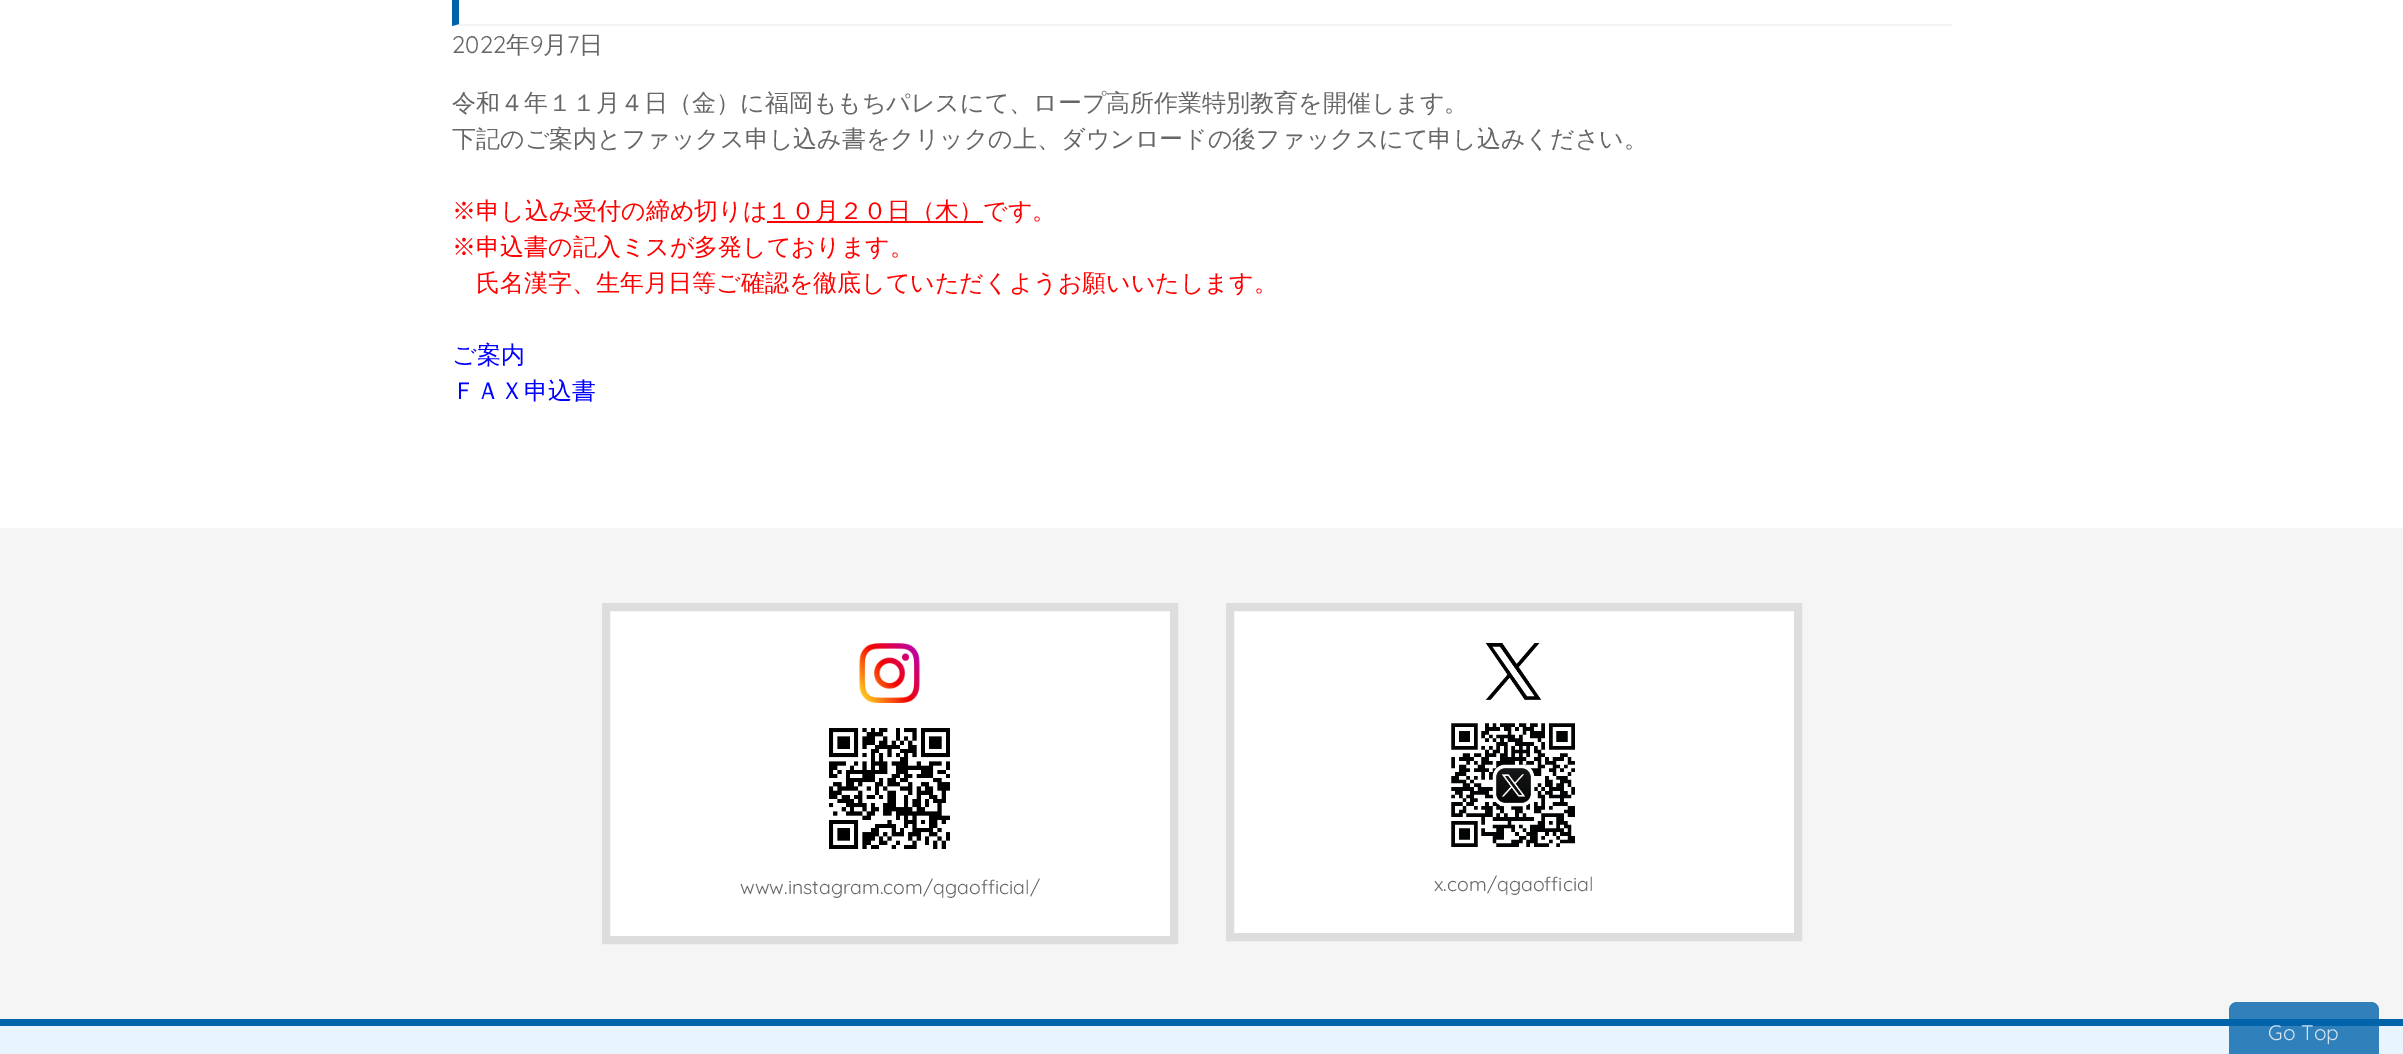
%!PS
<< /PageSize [2403 1054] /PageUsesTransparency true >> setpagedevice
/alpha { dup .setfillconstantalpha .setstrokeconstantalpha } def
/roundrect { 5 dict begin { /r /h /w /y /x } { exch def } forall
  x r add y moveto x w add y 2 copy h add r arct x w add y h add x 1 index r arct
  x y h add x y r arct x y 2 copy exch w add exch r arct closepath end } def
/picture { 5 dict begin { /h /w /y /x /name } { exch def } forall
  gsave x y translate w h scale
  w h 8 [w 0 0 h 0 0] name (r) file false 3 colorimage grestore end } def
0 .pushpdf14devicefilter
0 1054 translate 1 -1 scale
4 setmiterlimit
1 setgray
0 0 2403 1054 rectfill
0.957 setgray
newpath 1952 26 moveto 452 26 lineto 459 24 lineto 1952 24 lineto closepath fill
0 0.388 0.667 setrgbcolor
newpath 452 26 moveto 452 -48 lineto 459 -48 lineto 459 24 lineto closepath fill
/Quicksand-Regular [24 0 0 -24 0 0] selectfont
0.4 setgray
452 53 moveto (2022) show
/WenQuanYiZenHei-Medium [24 0 0 -24 0 0] selectfont
506 53 moveto (年) show
/Quicksand-Regular [24 0 0 -24 0 0] selectfont
530 53 moveto (9) show
/WenQuanYiZenHei-Medium [24 0 0 -24 0 0] selectfont
543 53 moveto (月) show
/Quicksand-Regular [24 0 0 -24 0 0] selectfont
567 53 moveto (7) show
/WenQuanYiZenHei-Medium [24 0 0 -24 0 0] selectfont
579 53 moveto (日) show
452 111 moveto (令和４年１１月４日（金）に福岡ももちパレスにて、ロープ高所作業特別教育を開催します。) show
452 147 moveto (下記のご案内とファックス申し込み書をクリックの上、ダウンロードの後ファックスにて申し込みください。) show
1 0 0 setrgbcolor
452 219 moveto (※申し込み受付の締め切りは) show
767 221 216 2 rectfill
767 219 moveto (１０月２０日（木）です。) show
452 255 moveto (※申込書の記入ミスが多発しております。) show
476 291 moveto (氏名漢字、生年月日等ご確認を徹底していただくようお願いいたします。) show
0 0 1 setrgbcolor
452 363 moveto (ご案内) show
452 399 moveto (ＦＡＸ申込書) show
0.961 setgray
0 528 2403 491 rectfill
1 setgray
newpath 606 607 moveto 1174 607 lineto 1174 940 lineto 606 940 lineto closepath gsave fill grestore
0.867 setgray
8 setlinewidth
stroke
(img1.rgb) 859 643 61 60 picture
(img2.rgb) 829 728 121 121 picture
/Quicksand-Regular [19.5 0 0 -19.5 0 0] selectfont
0.4 setgray
740 894 moveto (www.instagram.com/qgaofficial/) show
1 setgray
newpath 1230 607 moveto 1798 607 lineto 1798 937 lineto 1230 937 lineto closepath gsave fill grestore
0.867 setgray
stroke
(img3.rgb) 1485 643 57 57 picture
(img4.rgb) 1451 723 124 124 picture
0.4 setgray
1434 891 moveto (x.com/qgaofficial) show
0.91 0.961 1 setrgbcolor
0 1026 2403 28 rectfill
0.004 0.388 0.667 setrgbcolor
0 1019 2403 7 rectfill
0.8 alpha
2229 1002 150 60 8 roundrect fill
/Quicksand-Regular [21 0 0 -21 0 0] selectfont
1 alpha
0.835 0.898 0.945 setrgbcolor
2268 1040 moveto (Go Top) show
.poppdf14devicefilter showpage
